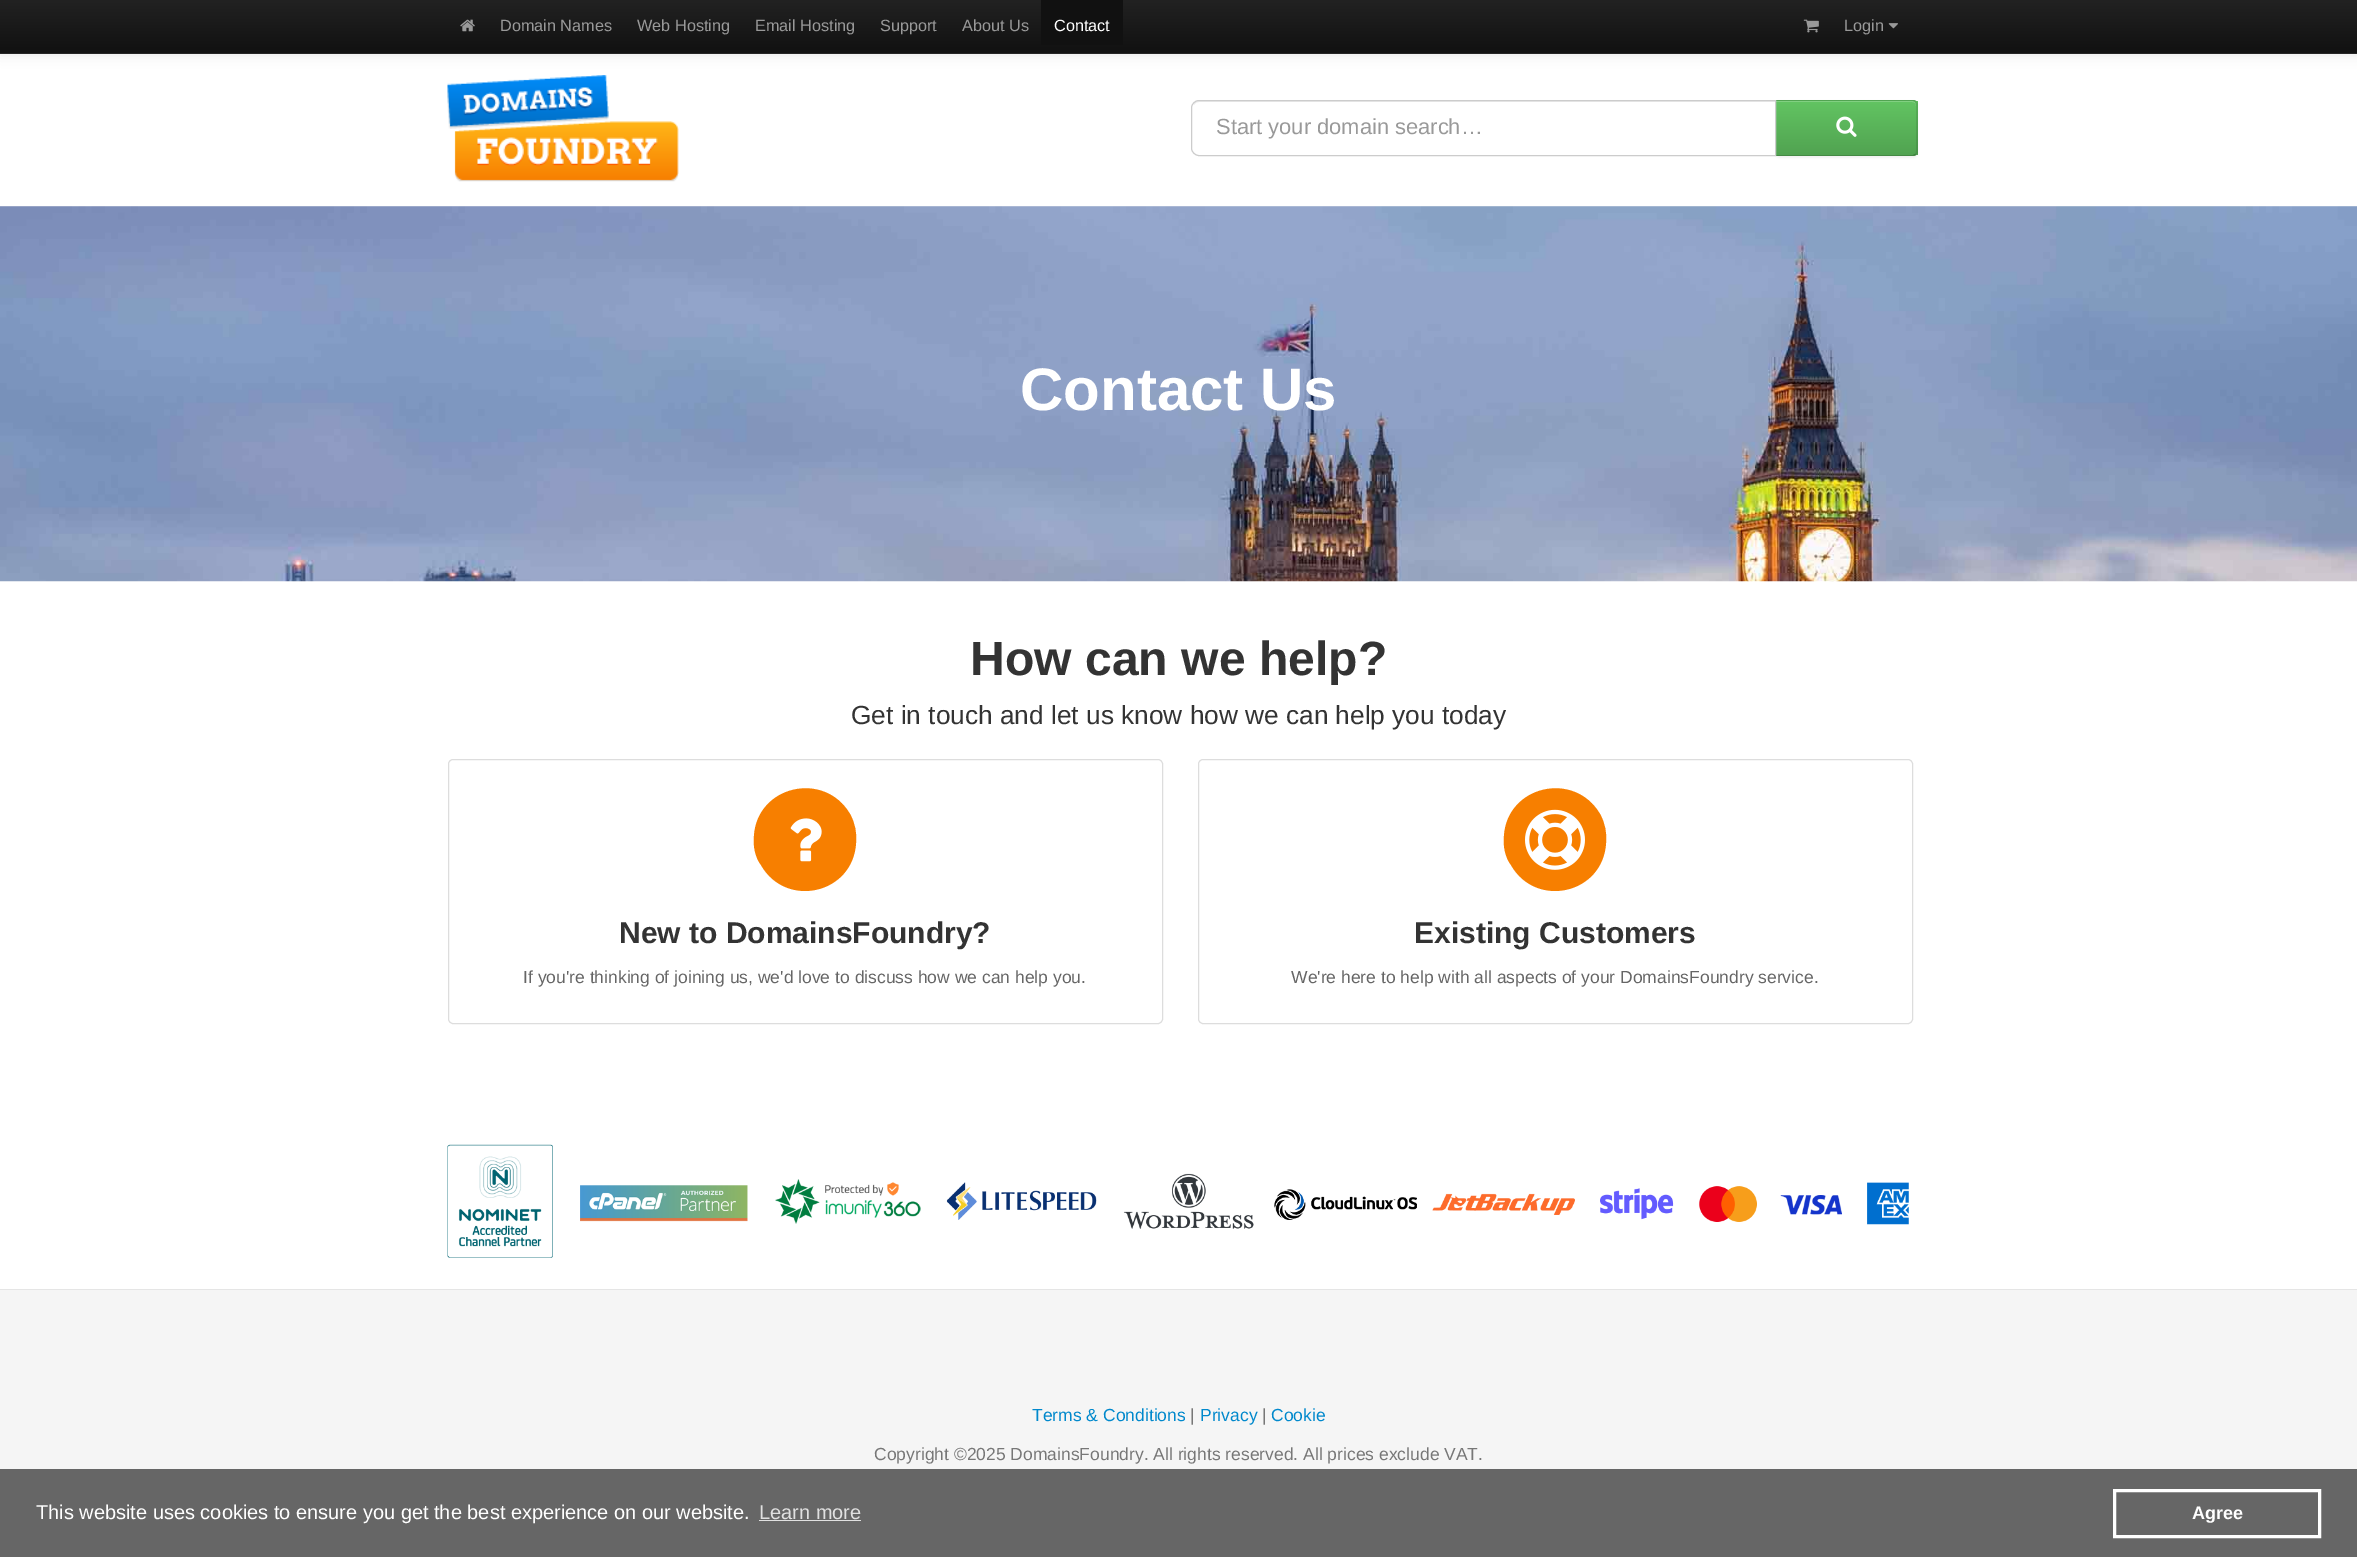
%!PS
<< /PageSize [2357 1557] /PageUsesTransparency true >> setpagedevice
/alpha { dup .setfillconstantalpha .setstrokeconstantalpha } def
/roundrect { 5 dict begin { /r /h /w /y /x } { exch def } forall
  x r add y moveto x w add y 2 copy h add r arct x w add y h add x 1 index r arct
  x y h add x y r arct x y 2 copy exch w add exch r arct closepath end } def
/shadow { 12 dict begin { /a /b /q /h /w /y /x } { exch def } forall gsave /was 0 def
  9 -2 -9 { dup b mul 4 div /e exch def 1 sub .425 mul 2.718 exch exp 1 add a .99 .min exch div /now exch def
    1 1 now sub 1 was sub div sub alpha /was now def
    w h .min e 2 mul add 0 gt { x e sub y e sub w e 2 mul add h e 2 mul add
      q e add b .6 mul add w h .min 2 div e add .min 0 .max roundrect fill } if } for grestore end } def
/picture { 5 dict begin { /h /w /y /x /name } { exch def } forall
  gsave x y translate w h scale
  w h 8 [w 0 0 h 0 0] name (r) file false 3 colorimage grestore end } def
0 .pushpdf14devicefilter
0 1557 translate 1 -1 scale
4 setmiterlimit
1 setgray
0 0 2357 1557 rectfill
0 setgray
0 1 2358 54 0 6 0.1 shadow
gsave newpath 0 0 moveto 2357 0 lineto 2357 53 lineto 0 53 lineto closepath clip newpath
<< /ShadingType 2 /ColorSpace /DeviceRGB /Coords [1179 0 1179 53] /Extend [true true] /Function << /FunctionType 2 /Domain [0 1] /C0 [0.133 0.133 0.133] /C1 [0.067 0.067 0.067] /N 1 >> >> shfill grestore
0.145 setgray
0 53 2357 1 rectfill
(img1.rgb) 460 19 15 13 picture
/LiberationSans-Regular [16.25 0 0 -16.25 0 0] selectfont
0.6 setgray
500 31 moveto (Domain Names) show
637 31 moveto (Web Hosting) show
755 31 moveto (Email Hosting) show
880 31 moveto (Support) show
962 31 moveto (About Us) show
0.067 setgray
1041 0 82 45 rectfill
1 setgray
1054 31 moveto (Contact) show
(img2.rgb) 1803 19 16 14 picture
0.6 setgray
1844 31 moveto (Login) show
(img3.rgb) 1888 23 10 6 picture
(img4.rgb) 447 75 232 107 picture
0 setgray
1775 101 143 57 5 1 0.05 shadow
0.357 0.718 0.357 setrgbcolor
newpath 1775 100 moveto 1913 100 lineto 1916 100 1918 102 1918 105 curveto 1918 151 lineto 1918 154 1916 156 1913 156 curveto 1775 156 lineto closepath fill
gsave
newpath 1775 100 moveto 1913 100 lineto 1916 100 1918 102 1918 105 curveto 1918 151 lineto 1918 154 1916 156 1913 156 curveto 1775 156 lineto closepath clip newpath
gsave newpath 1776 101 moveto 1918 101 lineto 1918 155 lineto 1776 155 lineto closepath clip newpath
<< /ShadingType 2 /ColorSpace /DeviceRGB /Coords [1846 101 1846 155] /Extend [true true] /Function << /FunctionType 2 /Domain [0 1] /C0 [0.384 0.769 0.384] /C1 [0.318 0.639 0.318] /N 1 >> >> shfill grestore
grestore
0.506 0.816 0.506 setrgbcolor
newpath 1776 102 moveto 1912 102 lineto 1915 102 1916 104 1916 106 curveto 1916 105 lineto 1916 103 1914 101 1912 101 curveto 1776 101 lineto closepath fill
0.1 alpha
0 setgray
newpath 1775 100 moveto 1776 101 lineto 1913 101 lineto 1915 102 lineto 1916 101 lineto 1915 100 1914 100 1912 100 curveto closepath fill
newpath 1918 153 moveto 1916 155 lineto 1915 154 lineto 1916 153 1916 152 1916 151 curveto 1916 105 lineto 1915 102 lineto 1916 101 lineto 1918 103 lineto closepath fill
0.25 alpha
newpath 1916 155 moveto 1915 156 1913 156 1912 156 curveto 1775 156 lineto 1776 155 lineto 1913 155 lineto 1915 154 lineto closepath fill
1 alpha
1 setgray
newpath 1199 100 moveto 1776 100 lineto 1776 156 lineto 1199 156 lineto 1194.5 156 1191 152.5 1191 148 curveto 1191 108 lineto 1191 103.5 1194.5 100 1199 100 curveto closepath fill
0.925 setgray
newpath 1199 102 moveto 1775 102 lineto 1775 101 lineto 1199 101 lineto 1197 101 1194 102 1194 105 curveto 1195 103 1197 102 1199 102 curveto closepath fill
0.8 setgray
newpath 1199 100.5 moveto 1775.5 100.5 lineto 1775.5 155.5 lineto 1199 155.5 lineto 1195 155.5 1191.5 152 1191.5 148 curveto 1191.5 108 lineto 1191.5 104 1195 100.5 1199 100.5 curveto closepath stroke
/LiberationSans-Regular [21.9 0 0 -21.9 0 0] selectfont
0.6 setgray
1216 134 moveto (Start your domain search…) show
(img5.rgb) 1836 116 21 21 picture
(img6.rgb) 0 206 2357 376 picture
/LiberationSans-Bold [60 0 0 -60 0 0] selectfont
1 setgray
1020 410 moveto (Contact Us) show
/LiberationSans-Bold [48.1 0 0 -48.1 0 0] selectfont
0.2 setgray
970 675 moveto (How can we help?) show
/LiberationSans-Regular [26.25 0 0 -26.25 0 0] selectfont
851 724 moveto (Get in touch and let us know how we can help you today) show
0.867 setgray
448.5 759.5 714 264 4.5 roundrect stroke
0.969 0.498 0 setrgbcolor
newpath 850 814 moveto 855 823 857 833 856 843 curveto 853 894 786 909 761 865 curveto 755 857 753 846 754 836 curveto 757 786 824 770 850 814 curveto closepath fill
(img7.rgb) 790 818 32 44 picture
/LiberationSans-Bold [30 0 0 -30 0 0] selectfont
0.2 setgray
619 943 moveto (New to DomainsFoundry?) show
/LiberationSans-Regular [17.5 0 0 -17.5 0 0] selectfont
0.4 setgray
523 983 moveto (If you're thinking of joining us, we'd love to discuss how we can help you.) show
0.867 setgray
1198.5 759.5 714 264 4.5 roundrect stroke
0.969 0.498 0 setrgbcolor
newpath 1600 814 moveto 1605 823 1607 833 1606 843 curveto 1603 894 1536 909 1511 865 curveto 1505 857 1503 846 1504 836 curveto 1507 786 1574 770 1600 814 curveto closepath fill
(img8.rgb) 1525 809 60 61 picture
/LiberationSans-Bold [30 0 0 -30 0 0] selectfont
0.2 setgray
1414 943 moveto (Existing Customers) show
/LiberationSans-Regular [17.5 0 0 -17.5 0 0] selectfont
0.4 setgray
1291 983 moveto (We're here to help with all aspects of your DomainsFoundry service.) show
(img9.rgb) 447 1144 1462 114 picture
0.961 setgray
0 1290 2357 179 rectfill
0.898 setgray
0 1289 2357 1 rectfill
0 0.533 0.8 setrgbcolor
1032 1421 moveto (Terms & Conditions) show
0.467 setgray
1190 1421 moveto (|) show
0 0.533 0.8 setrgbcolor
1200 1421 moveto (Privacy) show
0.467 setgray
1262 1421 moveto (|) show
0 0.533 0.8 setrgbcolor
1271 1421 moveto (Cookie) show
0.467 setgray
874 1460 moveto (Copyright ©2025 DomainsFoundry. All rights reserved. All prices exclude VAT.) show
0.4 setgray
0 1469 2357 88 rectfill
/LiberationSans-Regular [20 0 0 -20 0 0] selectfont
1 setgray
36 1519 moveto (This website uses cookies to ensure you get the best experience on our website.) show
0.878 setgray
759 1519 moveto (Learn more) show
759 1520 102 1 rectfill
1 setgray
3 setlinewidth
2114.5 1490.5 205 46 rectstroke
/LiberationSans-Bold [18 0 0 -18 0 0] selectfont
2192 1519 moveto (Agree) show
.poppdf14devicefilter showpage
